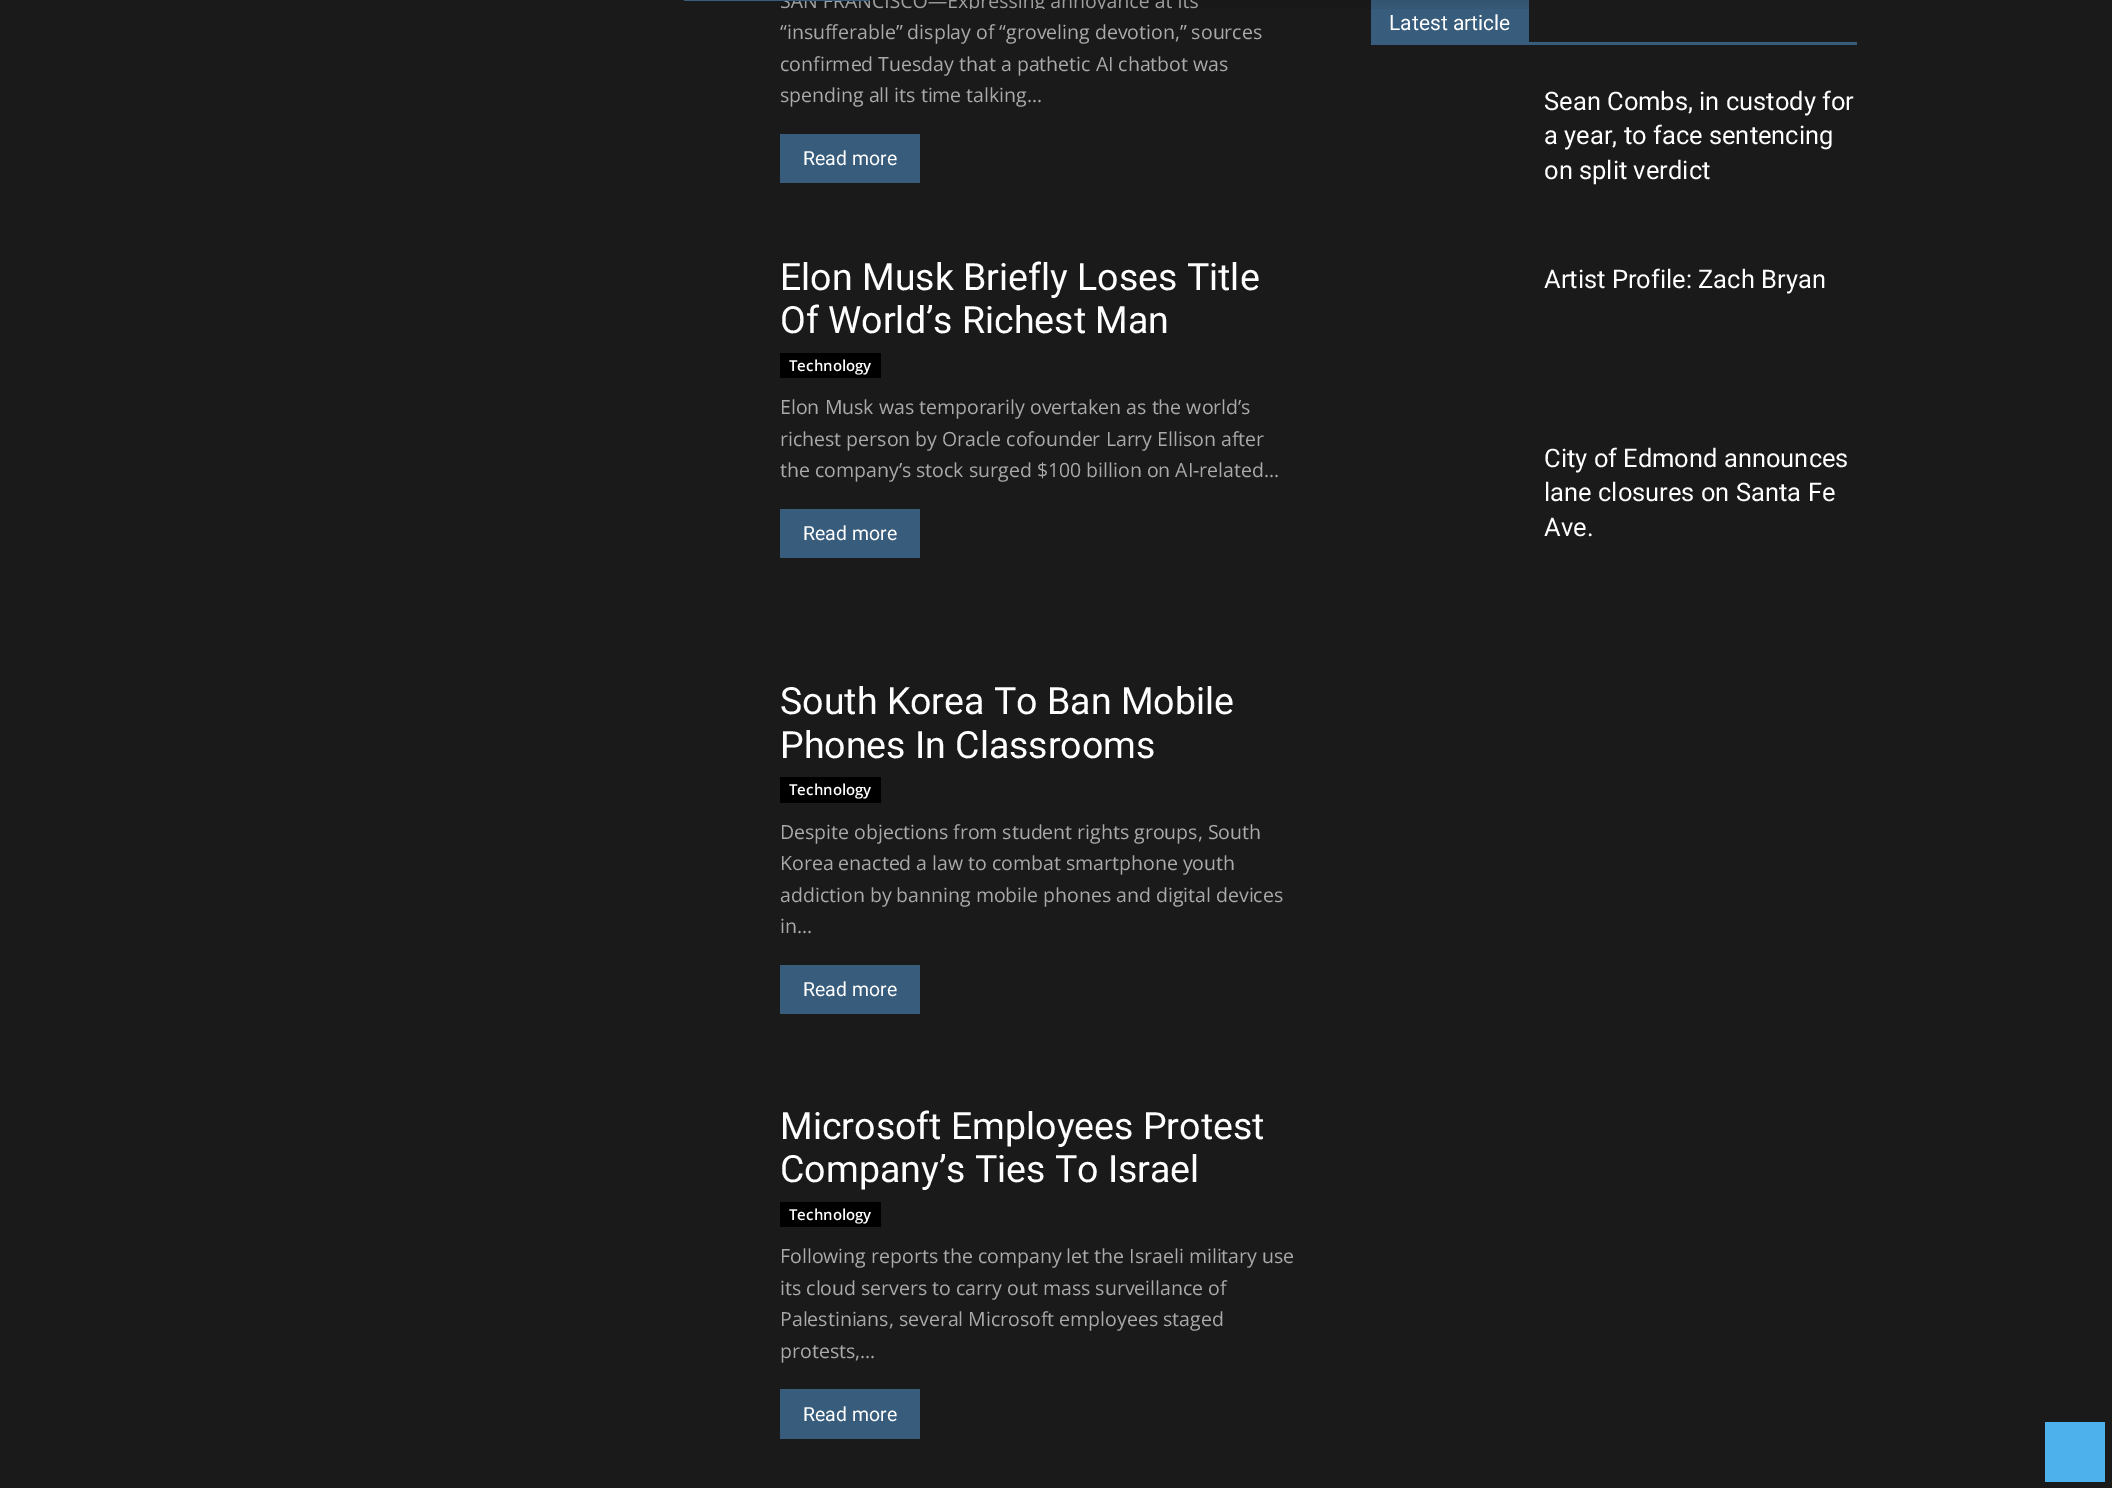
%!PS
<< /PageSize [2112 1488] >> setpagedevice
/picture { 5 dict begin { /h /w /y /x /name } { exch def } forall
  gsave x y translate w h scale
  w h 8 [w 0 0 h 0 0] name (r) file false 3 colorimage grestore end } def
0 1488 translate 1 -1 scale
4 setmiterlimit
0.102 setgray
0 0 2112 1488 rectfill
/OpenSans-Regular [19.5 0 0 -19.5 0 0] selectfont
0.667 setgray
928 8 moveto (—) show
0.22 0.361 0.482 setrgbcolor
1371 0 158 42 rectfill
(img1.rgb) 781 0 748 9 picture
684 0 186 1 rectfill
0.667 setgray
780 39 moveto (“insufferable” display of “groveling devotion,” sources) show
780 71 moveto (confirmed Tuesday that a pathetic AI chatbot was) show
780 102 moveto (spending all its time talking...) show
0.22 0.361 0.482 setrgbcolor
780 134 140 49 rectfill
/Roboto-Regular [19.5 0 0 -19.5 0 0] selectfont
1 setgray
803 165 moveto (Read more) show
/Roboto-Regular [37.5 0 0 -37.5 0 0] selectfont
780 290 moveto (Elon Musk Briefly Loses Title) show
780 333 moveto (Of World’s Richest Man) show
0 setgray
780 353 101 25 rectfill
/OpenSans-SemiBold [15 0 0 -15 0 0] selectfont
1 setgray
789 371 moveto (Technology) show
/OpenSans-Regular [19.5 0 0 -19.5 0 0] selectfont
0.667 setgray
780 414 moveto (Elon Musk was temporarily overtaken as the world’s) show
780 446 moveto (richest person by Oracle cofounder Larry Ellison after) show
780 477 moveto (the company’s stock surged $100 billion on AI-related...) show
0.22 0.361 0.482 setrgbcolor
780 509 140 49 rectfill
/Roboto-Regular [19.5 0 0 -19.5 0 0] selectfont
1 setgray
803 540 moveto (Read more) show
/Roboto-Regular [37.5 0 0 -37.5 0 0] selectfont
780 714 moveto (South Korea To Ban Mobile) show
780 758 moveto (Phones In Classrooms) show
0 setgray
780 777 101 26 rectfill
/OpenSans-SemiBold [15 0 0 -15 0 0] selectfont
1 setgray
789 795 moveto (Technology) show
/OpenSans-Regular [19.5 0 0 -19.5 0 0] selectfont
0.667 setgray
780 839 moveto (Despite objections from student rights groups, South) show
780 870 moveto (Korea enacted a law to combat smartphone youth) show
780 902 moveto (addiction by banning mobile phones and digital devices) show
780 933 moveto (in...) show
0.22 0.361 0.482 setrgbcolor
780 965 140 49 rectfill
/Roboto-Regular [19.5 0 0 -19.5 0 0] selectfont
1 setgray
803 996 moveto (Read more) show
/Roboto-Regular [37.5 0 0 -37.5 0 0] selectfont
780 1139 moveto (Microsoft Employees Protest) show
780 1182 moveto (Company’s Ties To Israel) show
0 setgray
780 1202 101 25 rectfill
/OpenSans-SemiBold [15 0 0 -15 0 0] selectfont
1 setgray
789 1220 moveto (Technology) show
/OpenSans-Regular [19.5 0 0 -19.5 0 0] selectfont
0.667 setgray
780 1263 moveto (Following reports the company let the Israeli military use) show
780 1295 moveto (its cloud servers to carry out mass surveillance of) show
780 1326 moveto (Palestinians, several Microsoft employees staged) show
780 1358 moveto (protests,...) show
0.22 0.361 0.482 setrgbcolor
780 1389 140 50 rectfill
/Roboto-Regular [19.5 0 0 -19.5 0 0] selectfont
1 setgray
803 1421 moveto (Read more) show
0.22 0.361 0.482 setrgbcolor
1371 42 486 3 rectfill
/Roboto-Regular [21 0 0 -21 0 0] selectfont
1 setgray
1389 30 moveto (Latest article) show
/Roboto-Regular [25.5 0 0 -25.5 0 0] selectfont
1544 110 moveto (Sean Combs, in custody for) show
1544 144 moveto (a year, to face sentencing) show
1544 179 moveto (on split verdict) show
1544 288 moveto (Artist Profile: Zach Bryan) show
1544 467 moveto (City of Edmond announces) show
1544 501 moveto (lane closures on Santa Fe) show
1544 536 moveto (Ave.) show
0.302 0.698 0.925 setrgbcolor
2045 1422 60 60 rectfill
showpage
